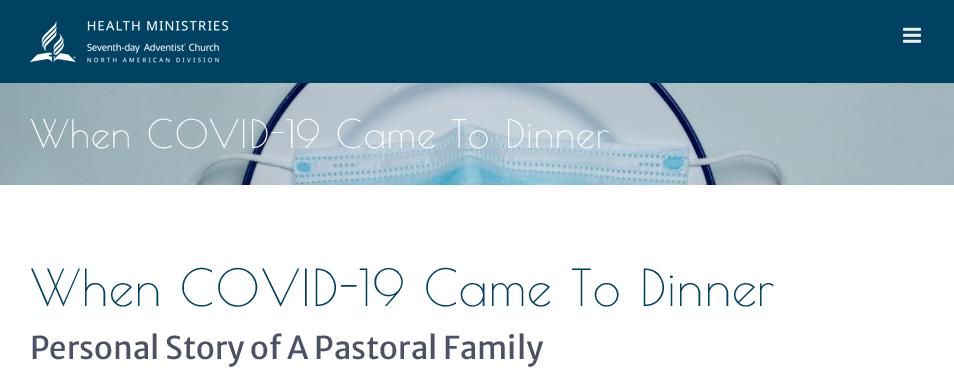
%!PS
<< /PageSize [954 370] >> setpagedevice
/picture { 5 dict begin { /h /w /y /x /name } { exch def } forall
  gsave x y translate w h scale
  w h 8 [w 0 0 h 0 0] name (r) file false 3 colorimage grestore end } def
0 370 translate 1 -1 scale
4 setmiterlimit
1 setgray
0 0 954 370 rectfill
0 0.259 0.384 setrgbcolor
0 0 954 83 rectfill
(img1.rgb) 30 20 199 43 picture
(img2.rgb) 903 27 18 16 picture
(img3.rgb) 0 83 954 102 picture
/PoiretOne-Regular [38.5 0 0 -38.5 0 0] selectfont
1 setgray
30 148 moveto 1 0 (When COVID-19 Came To Dinner) ashow
/PoiretOne-Regular [50 0 0 -50 0 0] selectfont
0 0.259 0.384 setrgbcolor
30 306 moveto 1 0 (When COVID-19 Came To Dinner) ashow
/MerriweatherSans-Regular [31.25 0 0 -31.25 0 0] selectfont
0.298 0.318 0.4 setrgbcolor
30 359 moveto (Personal Story of A Pastoral Family) show
showpage
